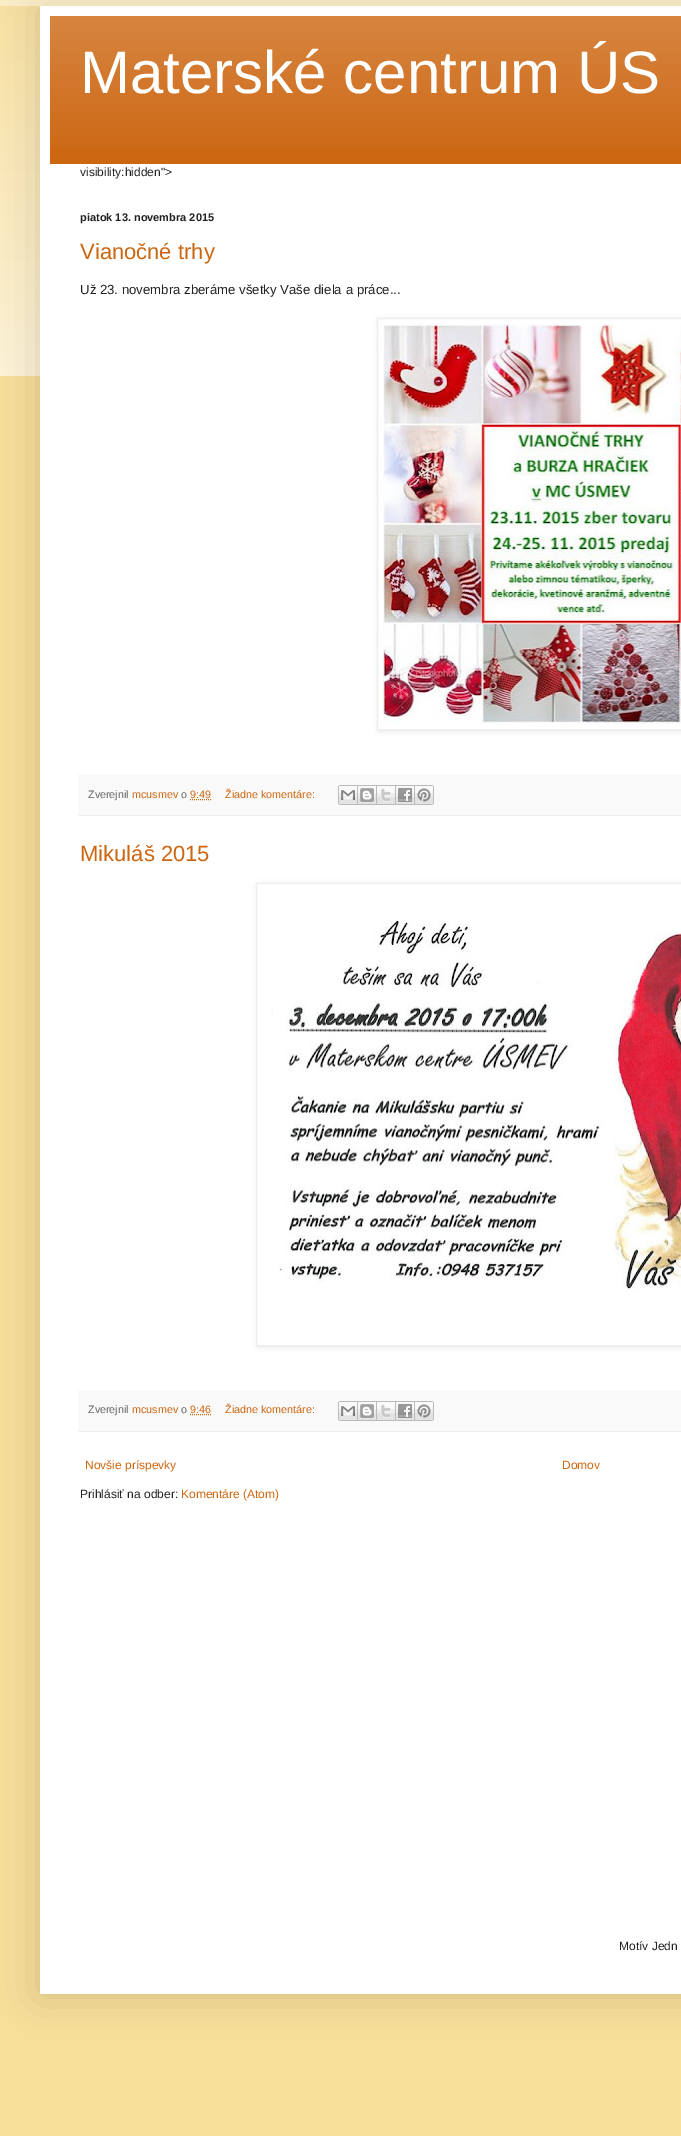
%!PS
<< /PageSize [681 2136] /PageUsesTransparency true >> setpagedevice
/alpha { dup .setfillconstantalpha .setstrokeconstantalpha } def
/roundrect { 5 dict begin { /r /h /w /y /x } { exch def } forall
  x r add y moveto x w add y 2 copy h add r arct x w add y h add x 1 index r arct
  x y h add x y r arct x y 2 copy exch w add exch r arct closepath end } def
/shadow { 12 dict begin { /a /b /q /h /w /y /x } { exch def } forall gsave /was 0 def
  9 -2 -9 { dup b mul 4 div /e exch def 1 sub .425 mul 2.718 exch exp 1 add a .99 .min exch div /now exch def
    1 1 now sub 1 was sub div sub alpha /was now def
    w h .min e 2 mul add 0 gt { x e sub y e sub w e 2 mul add h e 2 mul add
      q e add b .6 mul add w h .min 2 div e add .min 0 .max roundrect fill } if } for grestore end } def
/picture { 5 dict begin { /h /w /y /x /name } { exch def } forall
  gsave x y translate w h scale
  w h 8 [w 0 0 h 0 0] name (r) file false 3 colorimage grestore end } def
0 .pushpdf14devicefilter
0 2136 translate 1 -1 scale
4 setmiterlimit
0.969 0.871 0.6 setrgbcolor
0 0 681 2136 rectfill
(img1.rgb) 0 0 681 376 picture
0 setgray
40 6 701 1988 0 20 0.15 shadow
0.4 alpha
1 setgray
0 0 681 6 rectfill
1 alpha
40 6 641 1988 rectfill
0.8 0.4 0.067 setrgbcolor
50 16 631 148 rectfill
(img2.rgb) 50 16 631 133 picture
/LiberationSans-Regular [60 0 0 -60 0 0] selectfont
1 setgray
80 93 moveto (Materské centrum ÚS) show
/LiberationSans-Regular [12 0 0 -12 0 0] selectfont
0.133 setgray
80 176 moveto (visibility:hidden">) show
/LiberationSans-Bold [11 0 0 -11 0 0] selectfont
80 221 moveto (piatok 13. novembra 2015) show
/LiberationSans-Regular [22 0 0 -22 0 0] selectfont
0.8 0.4 0.067 setrgbcolor
80 259 moveto (Vianočné trhy) show
/LiberationSans-Regular [13.2 0 0 -13.2 0 0] selectfont
0.133 setgray
80 294 moveto (Už 23. novembra zberáme všetky Vaše diela a práce...) show
gsave
newpath 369 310 moveto 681 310 lineto 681 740 lineto 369 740 lineto closepath 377 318 moveto 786 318 lineto 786 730 lineto 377 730 lineto closepath eoclip newpath
0 setgray
378 319 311 412 0 2.5 0.1 shadow
grestore
0.933 setgray
377.5 318.5 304 411 rectstroke
(img3.rgb) 383 324 298 400 picture
0.976 setgray
78 774 603 41 rectfill
0.933 setgray
78 815 603 1 rectfill
/LiberationSans-Regular [10.75 0 0 -10.75 0 0] selectfont
0.4 setgray
88 798 moveto (Zverejnil) show
0.8 0.4 0.067 setrgbcolor
132 798 moveto (mcusmev) show
0.4 setgray
181 798 moveto (o) show
0.8 0.4 0.067 setrgbcolor
190 798 moveto (9:49) show
[1 1] 0 setdash
newpath 190 799.5 moveto 211 799.5 lineto stroke
225 798 moveto (Žiadne komentáre:) show
(img4.rgb) 338 785 20 20 picture
(img5.rgb) 358 785 19 20 picture
(img6.rgb) 377 785 19 20 picture
(img7.rgb) 396 785 19 20 picture
(img8.rgb) 415 785 19 20 picture
/LiberationSans-Regular [22 0 0 -22 0 0] selectfont
80 861 moveto (Mikuláš 2015) show
gsave
newpath 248 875 moveto 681 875 lineto 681 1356 lineto 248 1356 lineto closepath 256 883 moveto 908 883 lineto 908 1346 lineto 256 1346 lineto closepath eoclip newpath
0 setgray
257 884 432 463 0 2.5 0.1 shadow
grestore
0.933 setgray
[] 0 setdash
256.5 883.5 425 462 rectstroke
(img9.rgb) 271 920 410 372 picture
0.976 setgray
78 1390 603 41 rectfill
0.933 setgray
78 1431 603 1 rectfill
/LiberationSans-Regular [10.75 0 0 -10.75 0 0] selectfont
0.4 setgray
88 1413 moveto (Zverejnil) show
0.8 0.4 0.067 setrgbcolor
132 1413 moveto (mcusmev) show
0.4 setgray
181 1413 moveto (o) show
0.8 0.4 0.067 setrgbcolor
190 1413 moveto (9:46) show
[1 1] 0 setdash
newpath 190 1414.5 moveto 211 1414.5 lineto stroke
225 1413 moveto (Žiadne komentáre:) show
(img4.rgb) 338 1401 20 20 picture
(img5.rgb) 358 1401 19 20 picture
(img6.rgb) 377 1401 19 20 picture
(img7.rgb) 396 1401 19 20 picture
(img8.rgb) 415 1401 19 20 picture
/LiberationSans-Regular [12 0 0 -12 0 0] selectfont
85 1469 moveto (Novšie príspevky) show
562 1469 moveto (Domov) show
0.133 setgray
80 1498 moveto (Prihlásiť na odber:) show
0.8 0.4 0.067 setrgbcolor
181 1498 moveto (Komentáre \(Atom\)) show
0.133 setgray
619 1950 moveto (Motív Jedn) show
.poppdf14devicefilter showpage
